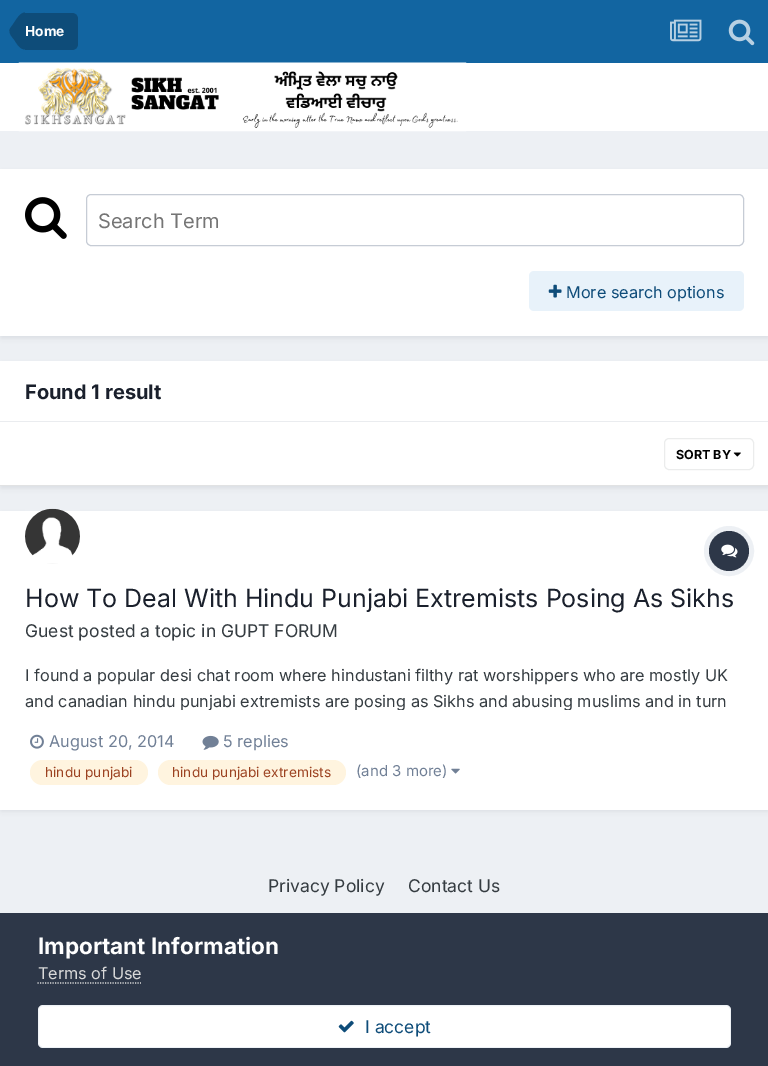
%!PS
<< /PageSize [768 1066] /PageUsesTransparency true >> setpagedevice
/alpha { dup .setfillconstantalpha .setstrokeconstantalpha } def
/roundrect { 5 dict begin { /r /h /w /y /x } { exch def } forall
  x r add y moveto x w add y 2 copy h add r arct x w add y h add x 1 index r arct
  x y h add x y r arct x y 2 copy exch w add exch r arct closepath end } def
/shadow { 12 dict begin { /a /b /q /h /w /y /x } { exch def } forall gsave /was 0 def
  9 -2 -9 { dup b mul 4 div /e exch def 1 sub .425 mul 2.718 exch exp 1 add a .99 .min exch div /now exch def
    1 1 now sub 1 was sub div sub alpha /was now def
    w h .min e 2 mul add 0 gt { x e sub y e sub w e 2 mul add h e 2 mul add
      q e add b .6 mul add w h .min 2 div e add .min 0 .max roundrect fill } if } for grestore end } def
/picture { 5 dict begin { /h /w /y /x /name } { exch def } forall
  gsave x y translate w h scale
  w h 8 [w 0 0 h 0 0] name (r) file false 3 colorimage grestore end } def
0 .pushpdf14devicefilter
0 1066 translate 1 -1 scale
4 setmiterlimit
0.929 0.941 0.957 setrgbcolor
0 0 768 1066 rectfill
0.071 0.396 0.631 setrgbcolor
0 0 768 63 rectfill
0.055 0.298 0.475 setrgbcolor
newpath 25 13 moveto 72 13 lineto 75.5 13 78 15.5 78 19 curveto 78 44 lineto 78 47.5 75.5 50 72 50 curveto 25 50 lineto closepath fill
newpath 25 49.5 moveto 19.5 49.5 16.5 43 14 39.5 curveto 12 37 9.5 34.5 9.5 31 curveto 25 31 lineto closepath 25 12.5 moveto 25 31 lineto 9.5 31 lineto 9 29 11.5 26.5 12.5 25 curveto 15.5 21 19.5 12.5 25 12.5 curveto closepath fill
/Inter-Bold [13.75 0 0 -13.75 0 0] selectfont
1 setgray
25 36 moveto (Home) show
(img1.rgb) 670 19 32 23 picture
(img2.rgb) 728 19 27 27 picture
0 63 768 68 rectfill
(img3.rgb) 18 62 449 70 picture
0.176 0.216 0.282 setrgbcolor
1 173 767 165 0 2.5 0.1 shadow
1 setgray
0 169 768 167 rectfill
(img4.rgb) 25 197 42 42 picture
0.776 0.8 0.835 setrgbcolor
86.5 194.5 657 51 4.5 roundrect stroke
/Inter-Regular [20 0 0 -20 0 0] selectfont
0.459 setgray
98 228 moveto (Search Term) show
0.91 0.949 0.98 setrgbcolor
529 271 215 40 5 roundrect fill
(img5.rgb) 548 284 14 14 picture
/Inter-Regular [16.25 0 0 -16.25 0 0] selectfont
0.055 0.298 0.475 setrgbcolor
566 298 moveto (More search options) show
0.176 0.216 0.282 setrgbcolor
1 365 767 123 0 2.5 0.1 shadow
1 setgray
0 361 768 124 rectfill
0.918 0.925 0.937 setrgbcolor
0 421 768 1 rectfill
/Inter-Bold [20 0 0 -20 0 0] selectfont
0.102 0.125 0.173 setrgbcolor
25 399 moveto (Found 1 result) show
0.882 0.886 0.89 setrgbcolor
0 485 768 1 rectfill
(img6.rgb) 733 452 8 5 picture
0.922 0.925 0.925 setrgbcolor
664.5 438.5 89 31 4.5 roundrect stroke
/Inter-Bold [12.5 0 0 -12.5 0 0] selectfont
0 setgray
676 459 moveto (SORT BY) show
0.176 0.216 0.282 setrgbcolor
1 515 767 296 0 2.5 0.1 shadow
1 setgray
0 511 768 299 rectfill
newpath 52.5 536.5 27.5 0 360 arc closepath fill
(img7.rgb) 25 508 55 56 picture
0.929 0.941 0.957 setrgbcolor
5 setlinewidth
newpath 729 551 22.5 0 360 arc closepath stroke
0.176 0.216 0.282 setrgbcolor
newpath 729 551 20 0 360 arc closepath fill
(img8.rgb) 721 544 17 14 picture
/Inter-Regular [25 0 0 -25 0 0] selectfont
0.102 0.125 0.173 setrgbcolor
25 607 moveto (How To Deal With Hindu Punjabi Extremists Posing As Sikhs) show
/Inter-Regular [17.5 0 0 -17.5 0 0] selectfont
0.208 0.235 0.255 setrgbcolor
25 637 moveto (Guest posted a topic in GUPT FORUM) show
/Inter-Regular [16.25 0 0 -16.25 0 0] selectfont
25 681 moveto (I found a popular desi chat room where hindustani filthy rat worshippers who are mostly UK) show
gsave
25 661 719 49 rectclip
25 707 moveto (and canadian hindu punjabi extremists are posing as Sikhs and abusing muslims and in turn) show
grestore
(img9.rgb) 30 734 14 15 picture
0.443 0.502 0.588 setrgbcolor
49 747 moveto (August 20, 2014) show
(img10.rgb) 202 735 17 15 picture
223 747 moveto (5 replies) show
1 0.957 0.875 setrgbcolor
30 760 118 25 12.5 roundrect fill
/Inter-Regular [13.75 0 0 -13.75 0 0] selectfont
0.612 0.259 0.129 setrgbcolor
45 777 moveto (hindu punjabi) show
1 0.957 0.875 setrgbcolor
158 760 188 25 12.5 roundrect fill
0.612 0.259 0.129 setrgbcolor
172 777 moveto (hindu punjabi extremists) show
/Inter-Regular [15 0 0 -15 0 0] selectfont
0.443 0.502 0.588 setrgbcolor
356 776 moveto (\(and 3 more\)) show
(img11.rgb) 451 768 9 6 picture
/Inter-Regular [17.5 0 0 -17.5 0 0] selectfont
0.208 0.235 0.255 setrgbcolor
268 892 moveto (Privacy Policy) show
408 892 moveto (Contact Us) show
0.176 0.216 0.282 setrgbcolor
0 913 768 153 rectfill
/Inter-Bold [22.5 0 0 -22.5 0 0] selectfont
1 setgray
38 954 moveto (Important Information) show
/Inter-Regular [16.25 0 0 -16.25 0 0] selectfont
0.855 setgray
38 979 moveto (Terms of Use) show
1.2 setlinewidth
[1.25 1.25] 0 setdash
newpath 37.5 983 moveto 141 983 lineto stroke
1 setgray
38 1005 693 43 5 roundrect fill
0.07 alpha
0.055 0.298 0.475 setrgbcolor
1 setlinewidth
[] 0 setdash
38.5 1005.5 692 42 4.5 roundrect stroke
1 alpha
(img12.rgb) 338 1020 16 13 picture
/Inter-Regular [17.5 0 0 -17.5 0 0] selectfont
365 1033 moveto (I accept) show
.poppdf14devicefilter showpage
